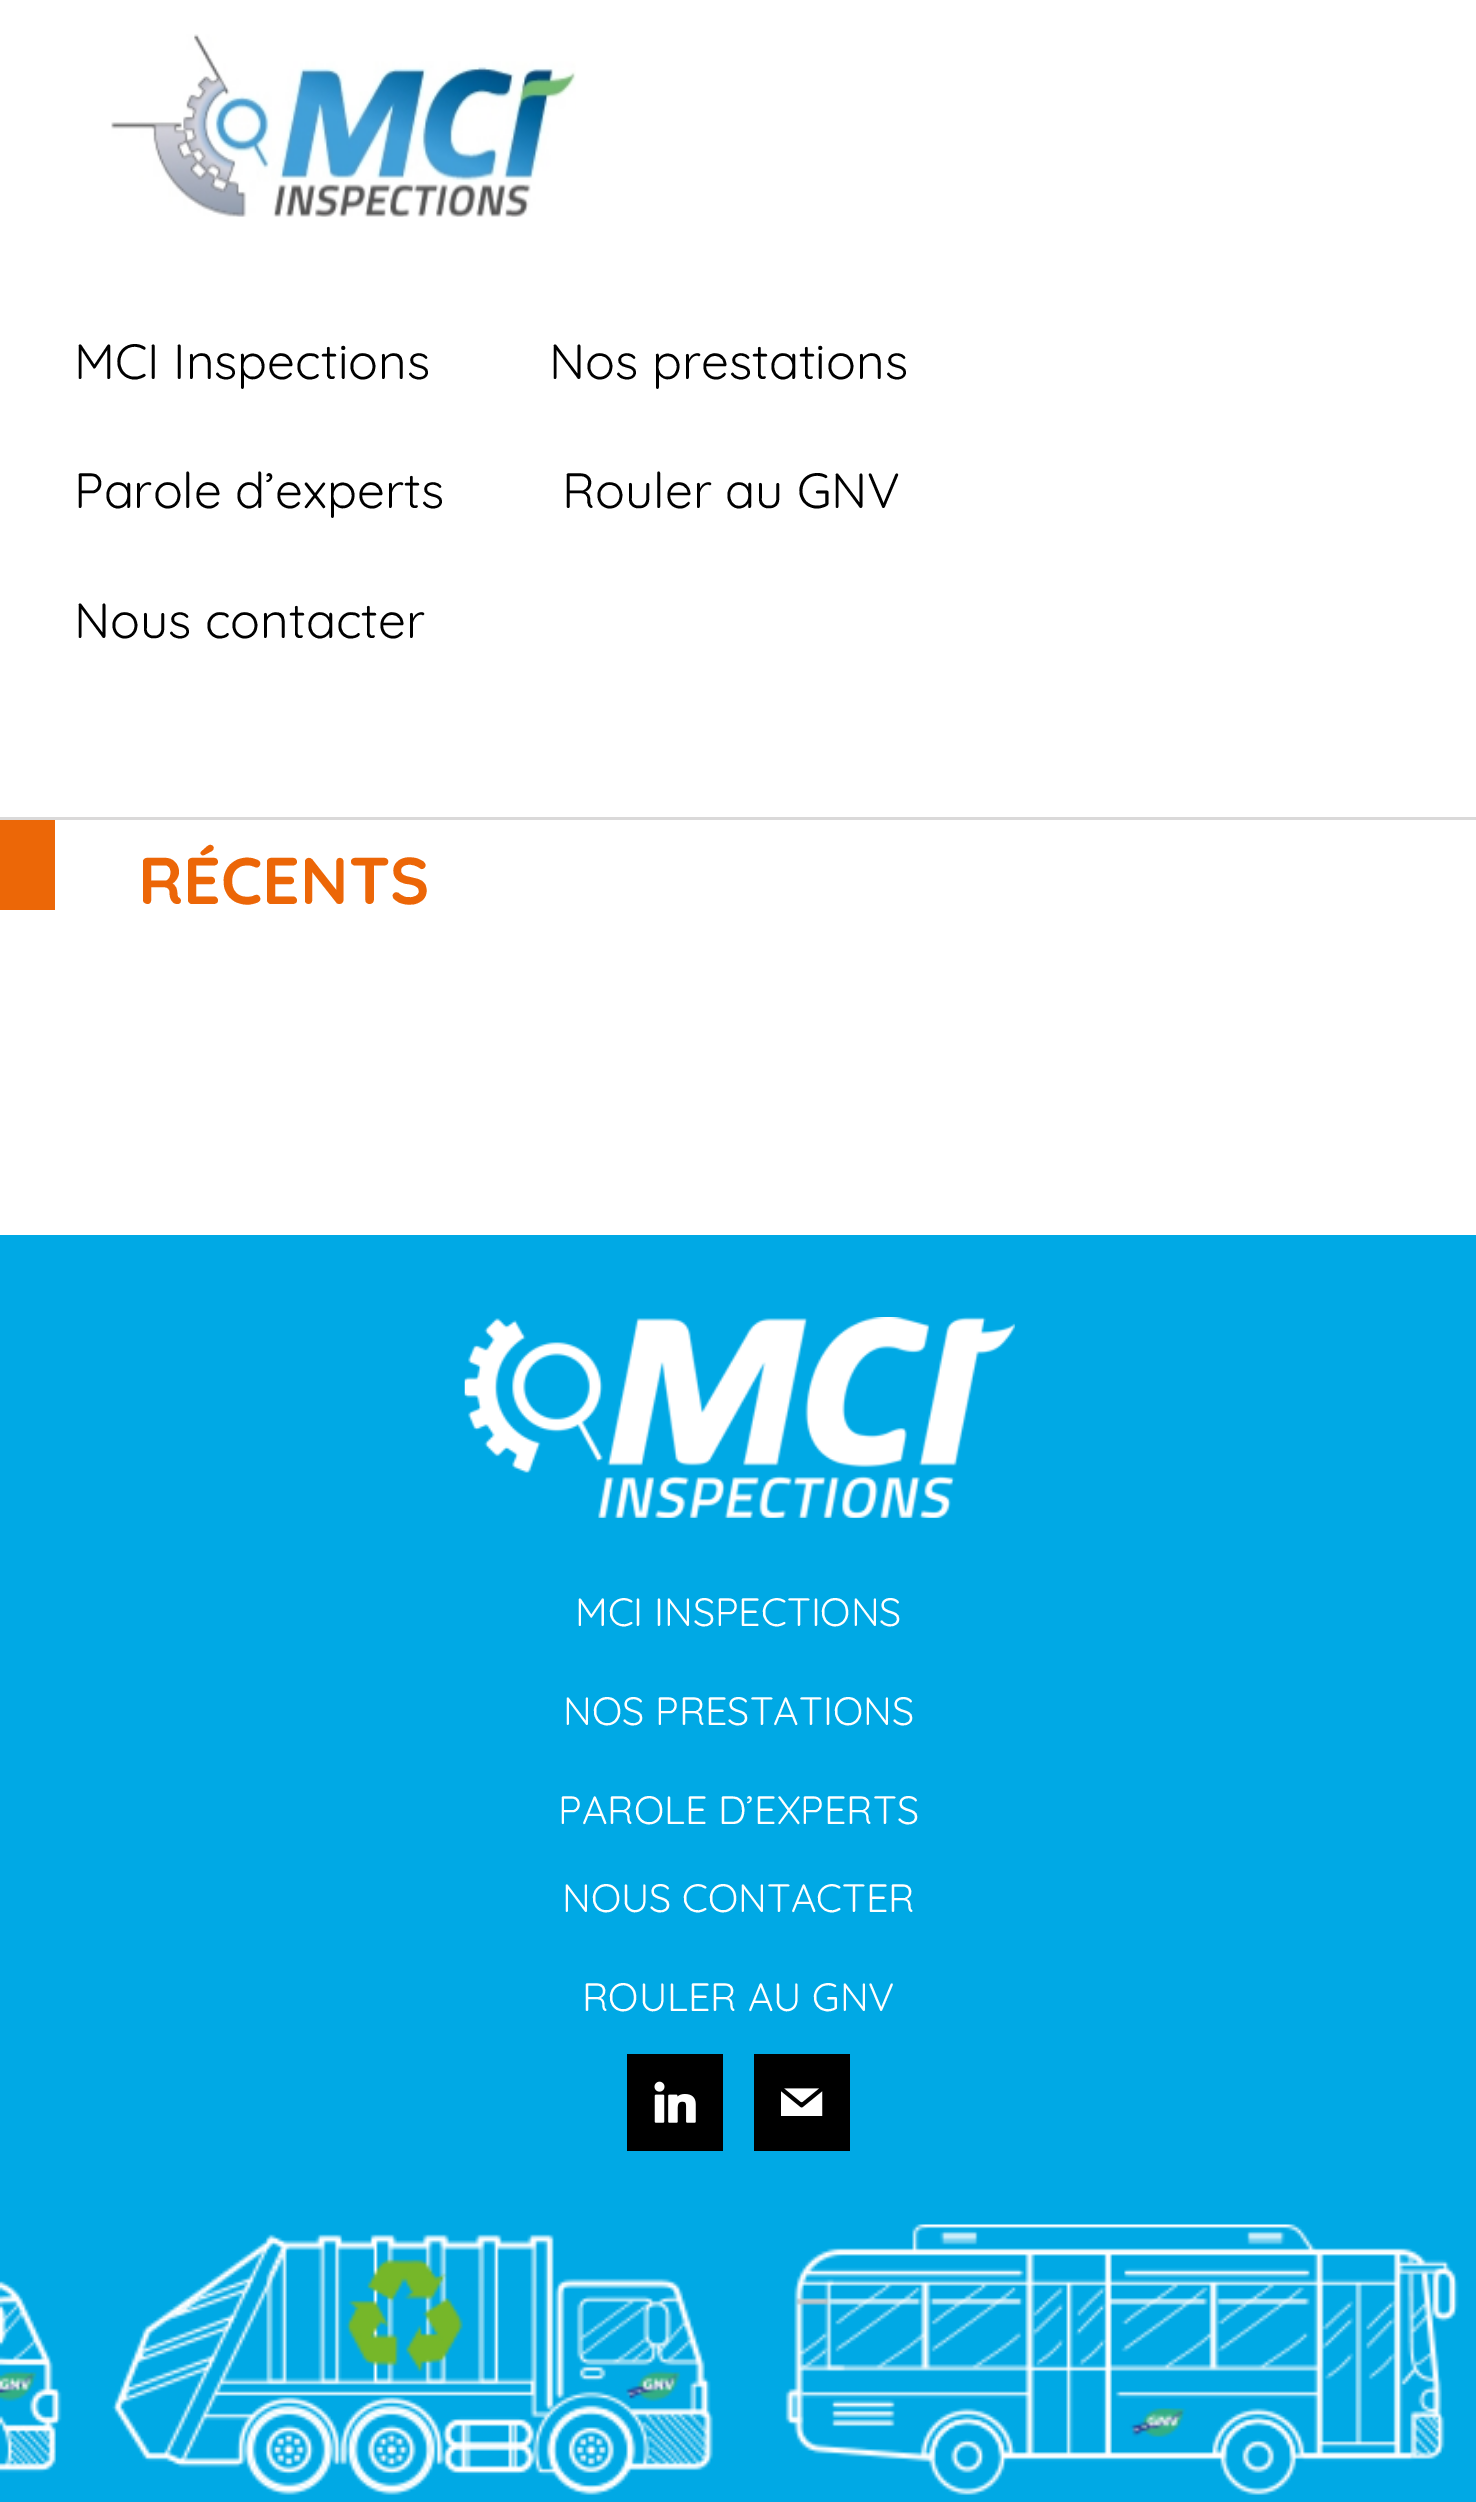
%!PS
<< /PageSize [1476 2502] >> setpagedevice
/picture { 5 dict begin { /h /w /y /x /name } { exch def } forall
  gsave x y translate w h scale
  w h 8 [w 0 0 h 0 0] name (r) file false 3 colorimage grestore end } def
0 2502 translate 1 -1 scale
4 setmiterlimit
1 setgray
0 0 1476 2502 rectfill
0.855 0.851 0.851 setrgbcolor
0 817 1476 3 rectfill
(img1.rgb) 111 34 465 183 picture
/Quicksand-Regular [49.5 0 0 -49.5 0 0] selectfont
0 setgray
74 379 moveto (MCI Inspections) show
549 379 moveto (Nos prestations) show
74 508 moveto (Parole d’experts) show
562 508 moveto (Rouler au GNV) show
74 638 moveto (Nous contacter) show
0.925 0.404 0.027 setrgbcolor
0 820 55 90 rectfill
/Quicksand-Bold [66 0 0 -66 0 0] selectfont
0.925 0.4 0.027 setrgbcolor
138 904 moveto (RÉCENTS) show
0 0.663 0.898 setrgbcolor
0 1235 1476 1267 rectfill
(img2.rgb) 0 2224 1459 271 picture
(img3.rgb) 464 1317 551 201 picture
/Quicksand-Regular [39.5 0 0 -39.5 0 0] selectfont
1 setgray
575 1626 moveto (MCI INSPECTIONS) show
563 1725 moveto (NOS PRESTATIONS) show
558 1824 moveto (PAROLE D’EXPERTS) show
562 1912 moveto (NOUS CONTACTER) show
582 2011 moveto (ROULER AU GNV) show
0 setgray
627 2054 96 97 rectfill
(img4.rgb) 654 2081 42 42 picture
754 2054 96 97 rectfill
(img5.rgb) 781 2088 42 28 picture
showpage
